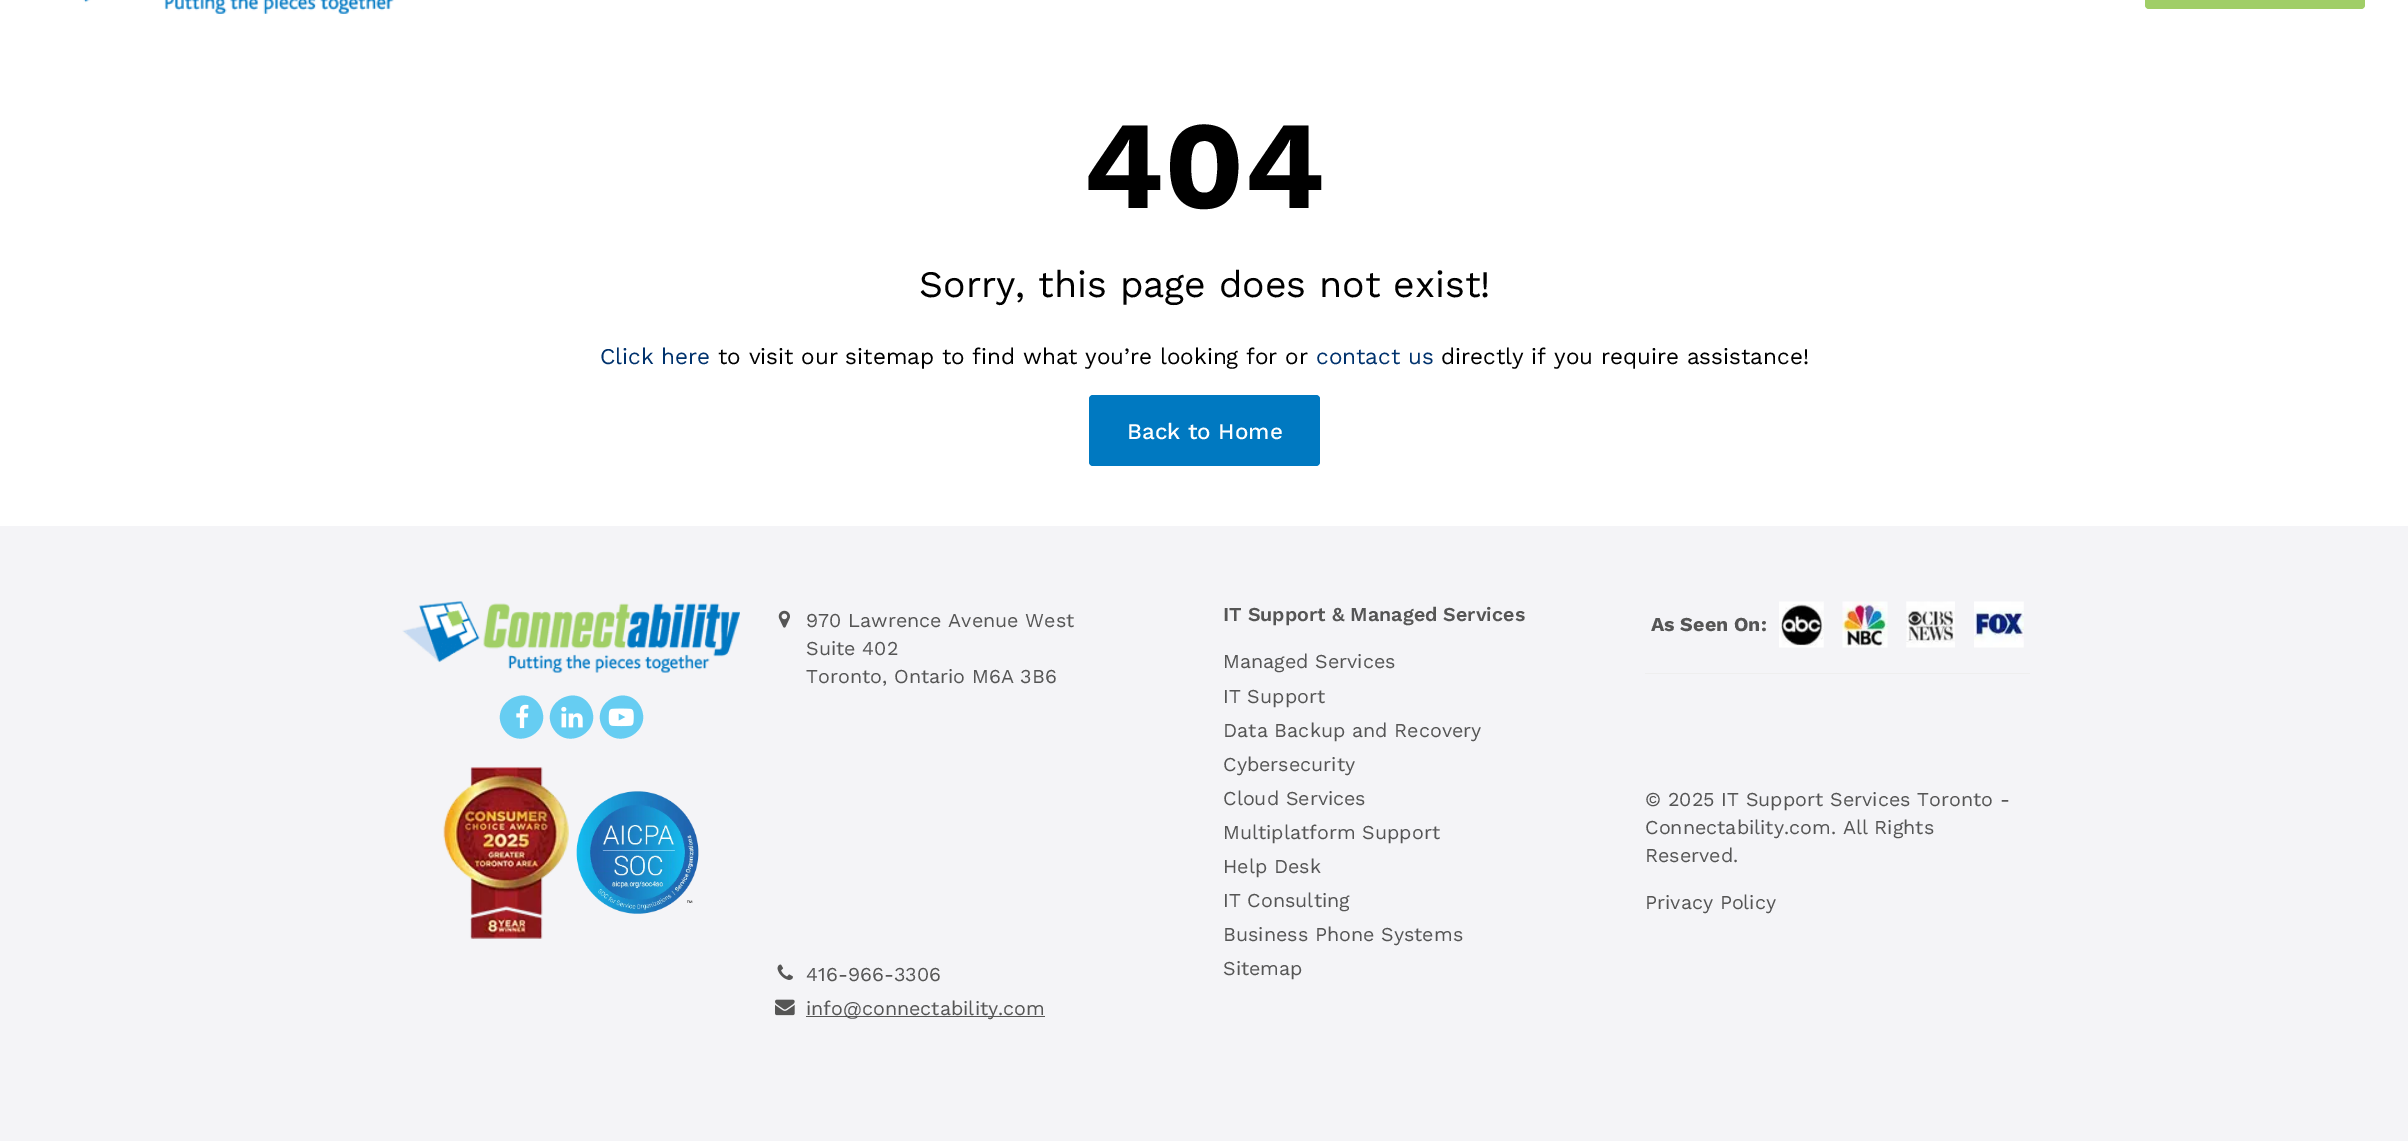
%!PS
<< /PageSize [2408 1141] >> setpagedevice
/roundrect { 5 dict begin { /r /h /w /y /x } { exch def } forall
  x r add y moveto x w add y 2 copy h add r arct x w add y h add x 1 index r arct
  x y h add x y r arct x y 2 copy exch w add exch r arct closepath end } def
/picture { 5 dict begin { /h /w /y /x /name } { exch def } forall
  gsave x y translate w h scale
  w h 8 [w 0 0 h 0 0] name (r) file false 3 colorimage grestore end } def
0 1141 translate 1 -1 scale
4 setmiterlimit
1 setgray
0 0 2408 1141 rectfill
(img1.rgb) 83 0 311 14 picture
0.627 0.808 0.404 setrgbcolor
2145 -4 220 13 4 roundrect fill
/WorkSans-Bold [125 0 0 -125 0 0] selectfont
0 setgray
1083 208 moveto (404) show
/WorkSans-Regular [37.5 0 0 -37.5 0 0] selectfont
919 297 moveto (Sorry, this page does not exist!) show
/WorkSans-Regular [22.5 0 0 -22.5 0 0] selectfont
0 0.196 0.427 setrgbcolor
600 364 moveto (Click here) show
0 setgray
718 364 moveto (to visit our sitemap to find what you’re looking for or) show
0 0.196 0.427 setrgbcolor
1316 364 moveto (contact us) show
0 setgray
1441 364 moveto (directly if you require assistance!) show
0 0.475 0.757 setrgbcolor
1089 395 231 71 4 roundrect fill
/WorkSans-Medium [22.5 0 0 -22.5 0 0] selectfont
1 setgray
1127 439 moveto (Back to Home) show
0.957 0.957 0.969 setrgbcolor
0 526 2408 615 rectfill
(img2.rgb) 402 601 338 72 picture
0.4 0.804 0.949 setrgbcolor
newpath 540 706 moveto 554 731 517 752 503 728 curveto 489 704 526 682 540 706 curveto closepath fill
(img3.rgb) 516 704 13 25 picture
newpath 590 706 moveto 604 731 567 752 553 728 curveto 539 704 576 682 590 706 curveto closepath fill
(img4.rgb) 561 706 22 22 picture
newpath 640 706 moveto 654 731 617 752 603 728 curveto 589 704 626 682 640 706 curveto closepath fill
(img5.rgb) 608 708 26 19 picture
(img6.rgb) 443 767 126 172 picture
(img7.rgb) 576 791 123 123 picture
(img8.rgb) 778 610 12 18 picture
/WorkSans-Regular [19.7 0 0 -19.7 0 0] selectfont
0.333 setgray
806 627 moveto (970 Lawrence Avenue West) show
806 655 moveto (Suite 402) show
806 683 moveto (Toronto, Ontario M6A 3B6) show
(img9.rgb) 777 964 16 16 picture
806 981 moveto (416-966-3306) show
(img10.rgb) 775 999 20 17 picture
806 1016 239 1 rectfill
806 1015 moveto (info@connectability.com) show
/WorkSans-SemiBold [19.7 0 0 -19.7 0 0] selectfont
1223 621 moveto (IT Support & Managed Services) show
/WorkSans-Regular [19.7 0 0 -19.7 0 0] selectfont
1223 668 moveto (Managed Services) show
1223 703 moveto (IT Support) show
1223 737 moveto (Data Backup and Recovery) show
1223 771 moveto (Cybersecurity) show
1223 805 moveto (Cloud Services) show
1223 839 moveto (Multiplatform Support) show
1223 873 moveto (Help Desk) show
1223 907 moveto (IT Consulting) show
1223 941 moveto (Business Phone Systems) show
1223 975 moveto (Sitemap) show
/WorkSans-Bold [19.7 0 0 -19.7 0 0] selectfont
1651 631 moveto (As Seen On:) show
(img11.rgb) 1779 601 45 47 picture
(img12.rgb) 1842 601 46 47 picture
(img13.rgb) 1906 601 49 47 picture
(img14.rgb) 1974 601 50 47 picture
0.933 setgray
1645 673 385 1 rectfill
/WorkSans-Regular [19.7 0 0 -19.7 0 0] selectfont
0.333 setgray
1645 806 moveto (© 2025 IT Support Services Toronto -) show
1645 834 moveto (Connectability.com. All Rights) show
1645 862 moveto (Reserved.) show
1645 909 moveto (Privacy Policy) show
showpage
